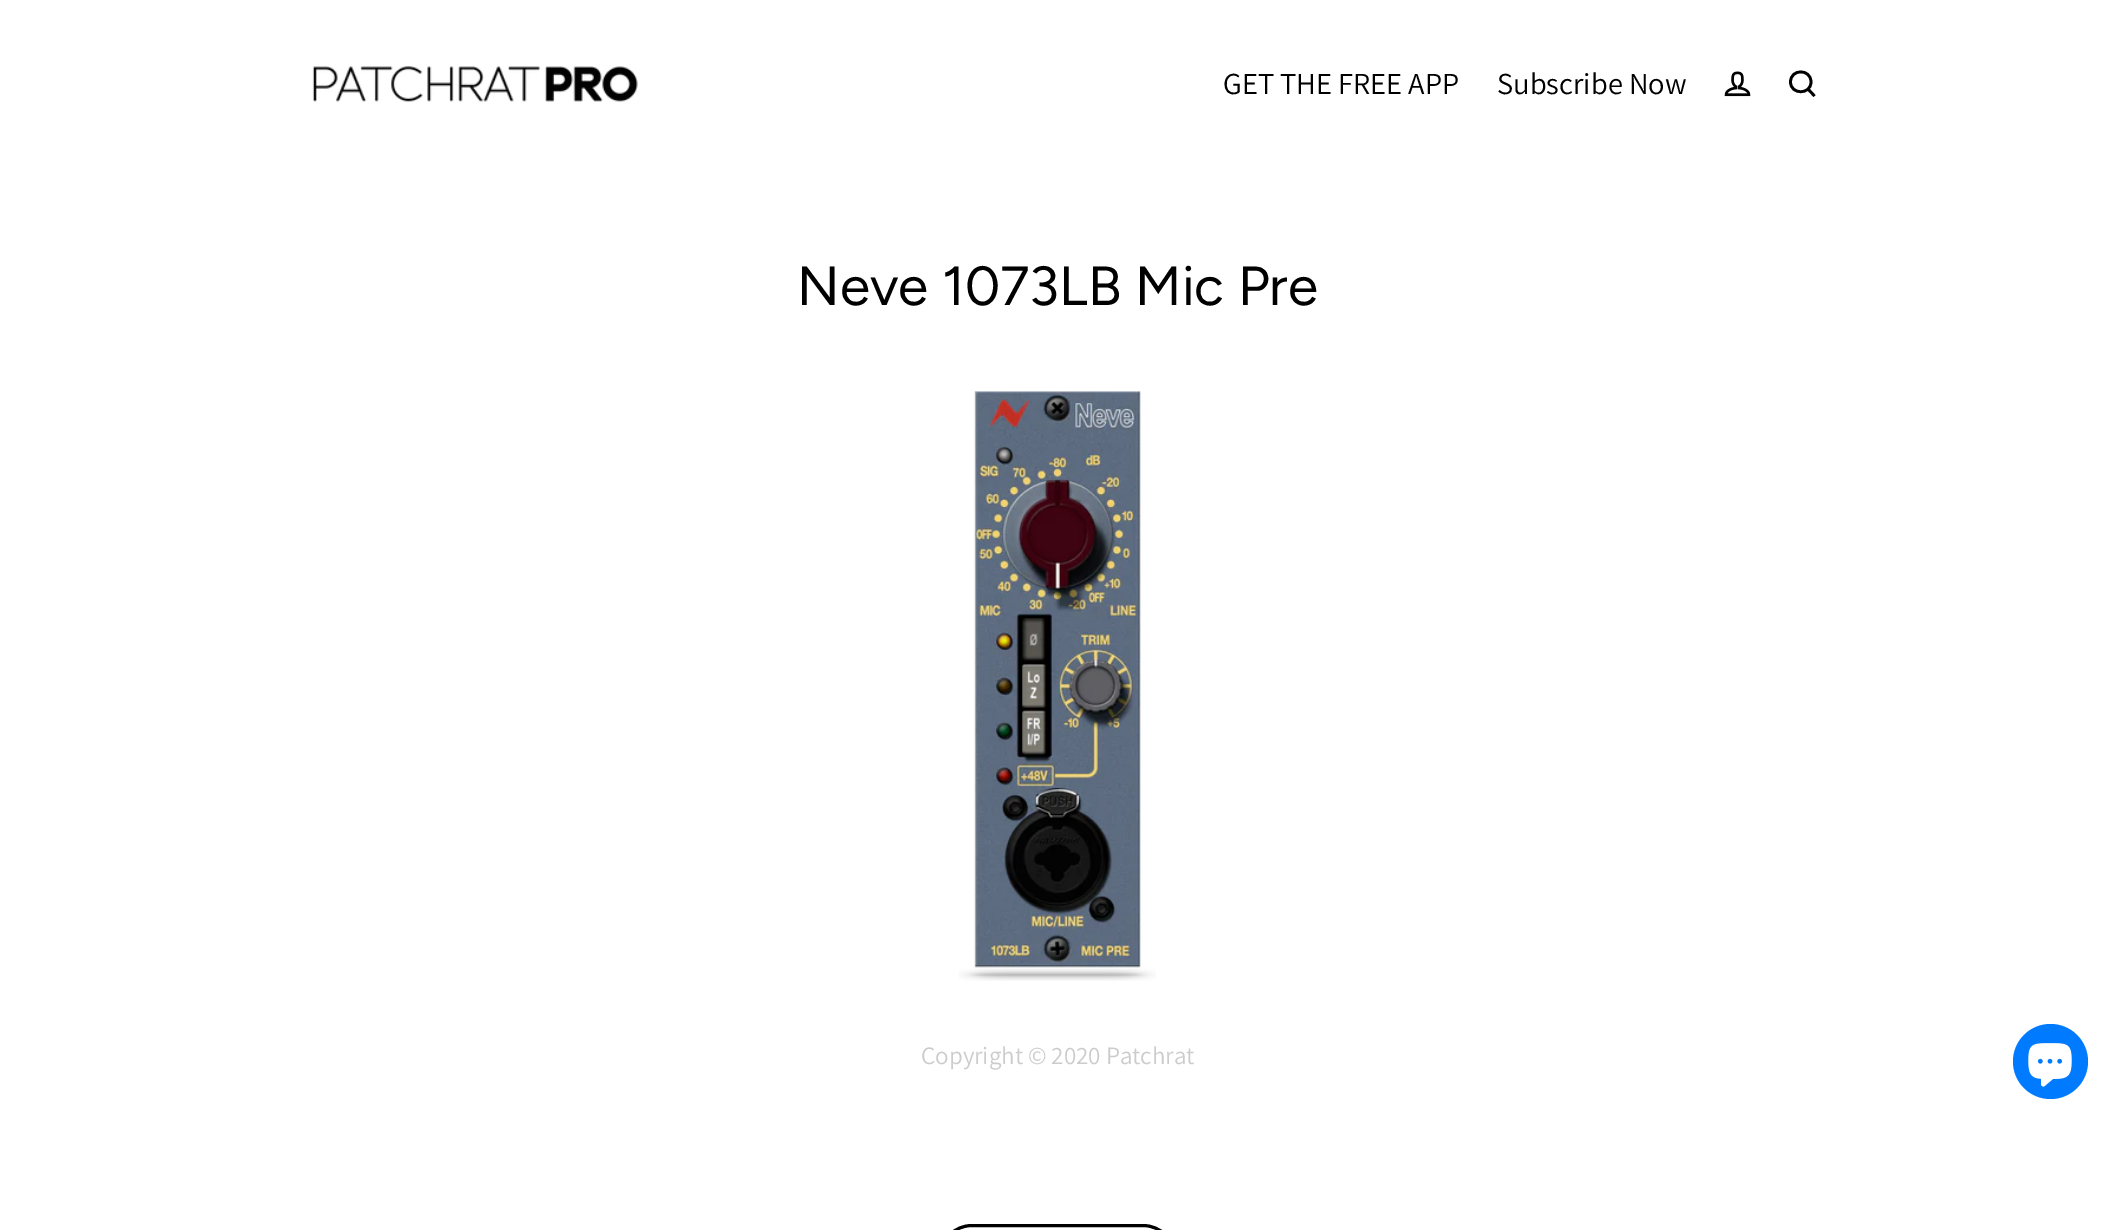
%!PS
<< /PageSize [2114 1230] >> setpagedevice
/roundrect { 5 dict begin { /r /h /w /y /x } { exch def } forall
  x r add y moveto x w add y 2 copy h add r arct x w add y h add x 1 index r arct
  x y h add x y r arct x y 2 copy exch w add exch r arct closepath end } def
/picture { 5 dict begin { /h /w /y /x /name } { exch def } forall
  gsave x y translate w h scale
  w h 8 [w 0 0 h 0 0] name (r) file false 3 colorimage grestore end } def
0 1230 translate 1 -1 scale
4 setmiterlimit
1 setgray
0 0 2114 1230 rectfill
(img1.rgb) 312 66 326 36 picture
/Assistant-Regular [30.5 0 0 -30.5 0 0] selectfont
0 setgray
1223 94 moveto (GET THE FREE APP) show
1497 94 moveto (Subscribe Now) show
(img2.rgb) 1724 71 27 26 picture
2.7 setlinewidth
newpath 1811 82 moveto 1811 95 1790.5 95 1790.5 82 curveto 1790.5 68.5 1811 68.5 1811 82 curveto closepath 1814.5 96 moveto 1808 89 lineto stroke
/Figtree-Regular [55 0 0 -55 0 0] selectfont
797 305 moveto (Neve 1073LB Mic Pre) show
(img3.rgb) 959 391 197 590 picture
/Assistant-Regular [25 0 0 -25 0 0] selectfont
0.8 setgray
921 1064 moveto (Copyright © 2020 Patchrat) show
0 setgray
3 setlinewidth
940.5 1225.5 234 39 31.5 roundrect stroke
0 0.478 1 setrgbcolor
newpath 2050.5 1061.5 37.5 0 360 arc closepath fill
(img4.rgb) 2028 1043 44 44 picture
showpage
